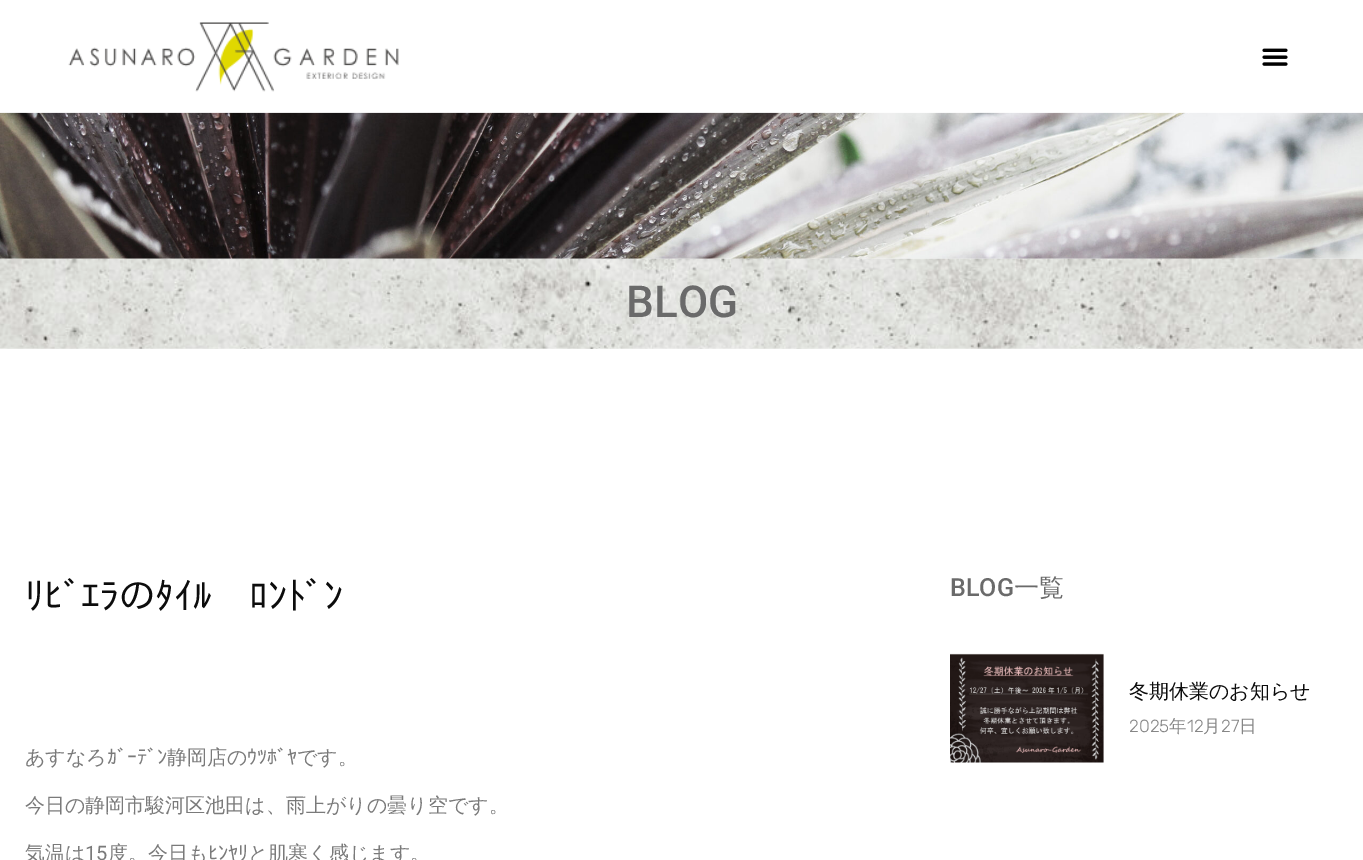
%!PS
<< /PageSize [1363 860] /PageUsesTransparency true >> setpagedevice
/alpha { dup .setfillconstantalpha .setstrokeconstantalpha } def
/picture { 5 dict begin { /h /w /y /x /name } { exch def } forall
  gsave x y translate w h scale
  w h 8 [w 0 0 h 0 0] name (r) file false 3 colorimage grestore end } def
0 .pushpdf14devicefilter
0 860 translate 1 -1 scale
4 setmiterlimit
1 setgray
0 0 1363 860 rectfill
(img3.rgb) 0 112 1363 147 picture
0.81 alpha
0 112 1363 1 rectfill
1 alpha
(img1.rgb) 68 22 331 70 picture
(img2.rgb) 1262 48 26 18 picture
(img4.rgb) 0 258 1363 91 picture
/Roboto-Medium [44 0 0 -44 0 0] selectfont
0.416 setgray
626 317 moveto (BLOG) show
/IPAPGothic-Regular [37.5 0 0 -37.5 0 0] selectfont
0.047 setgray
25 609 moveto (ﾘﾋﾞｴﾗのﾀｲﾙ) show
249 609 moveto (ﾛﾝﾄﾞﾝ) show
/WenQuanYiZenHei-Medium [20 0 0 -20 0 0] selectfont
0.478 setgray
25 764 moveto (あすなろ) show
/IPAPGothic-Regular [20 0 0 -20 0 0] selectfont
107 764 moveto (ｶﾞｰﾃﾞﾝ) show
/WenQuanYiZenHei-Medium [20 0 0 -20 0 0] selectfont
167 764 moveto (静岡店の) show
/IPAPGothic-Regular [20 0 0 -20 0 0] selectfont
247 764 moveto (ｳﾂﾎﾞﾔ) show
/WenQuanYiZenHei-Medium [20 0 0 -20 0 0] selectfont
297 764 moveto (です。) show
25 812 moveto (今日の静岡市駿河区池田は、雨上がりの曇り空です。) show
25 860 moveto (気温は) show
/Roboto-Regular [20 0 0 -20 0 0] selectfont
85 860 moveto (15) show
/WenQuanYiZenHei-Medium [20 0 0 -20 0 0] selectfont
108 860 moveto (度。今日も) show
/IPAPGothic-Regular [20 0 0 -20 0 0] selectfont
208 860 moveto (ﾋﾝﾔﾘ) show
/WenQuanYiZenHei-Medium [20 0 0 -20 0 0] selectfont
248 860 moveto (と肌寒く感じます。) show
/Roboto-Medium [25 0 0 -25 0 0] selectfont
0.416 setgray
950 596 moveto (BLOG) show
/WenQuanYiZenHei-Medium [25 0 0 -25 0 0] selectfont
1014 596 moveto (一覧) show
(img5.rgb) 950 653 154 110 picture
/WenQuanYiZenHei-Medium [20 0 0 -20 0 0] selectfont
0.047 setgray
1129 698 moveto (冬期休業のお知らせ) show
/Rubik-Light [17.5 0 0 -17.5 0 0] selectfont
0.525 setgray
1129 732 moveto (2025) show
/WenQuanYiZenHei-Medium [17.5 0 0 -17.5 0 0] selectfont
1169 732 moveto (年) show
/Rubik-Light [17.5 0 0 -17.5 0 0] selectfont
1187 732 moveto (12) show
/WenQuanYiZenHei-Medium [17.5 0 0 -17.5 0 0] selectfont
1203 732 moveto (月) show
/Rubik-Light [17.5 0 0 -17.5 0 0] selectfont
1221 732 moveto (27) show
/WenQuanYiZenHei-Medium [17.5 0 0 -17.5 0 0] selectfont
1239 732 moveto (日) show
.poppdf14devicefilter showpage
